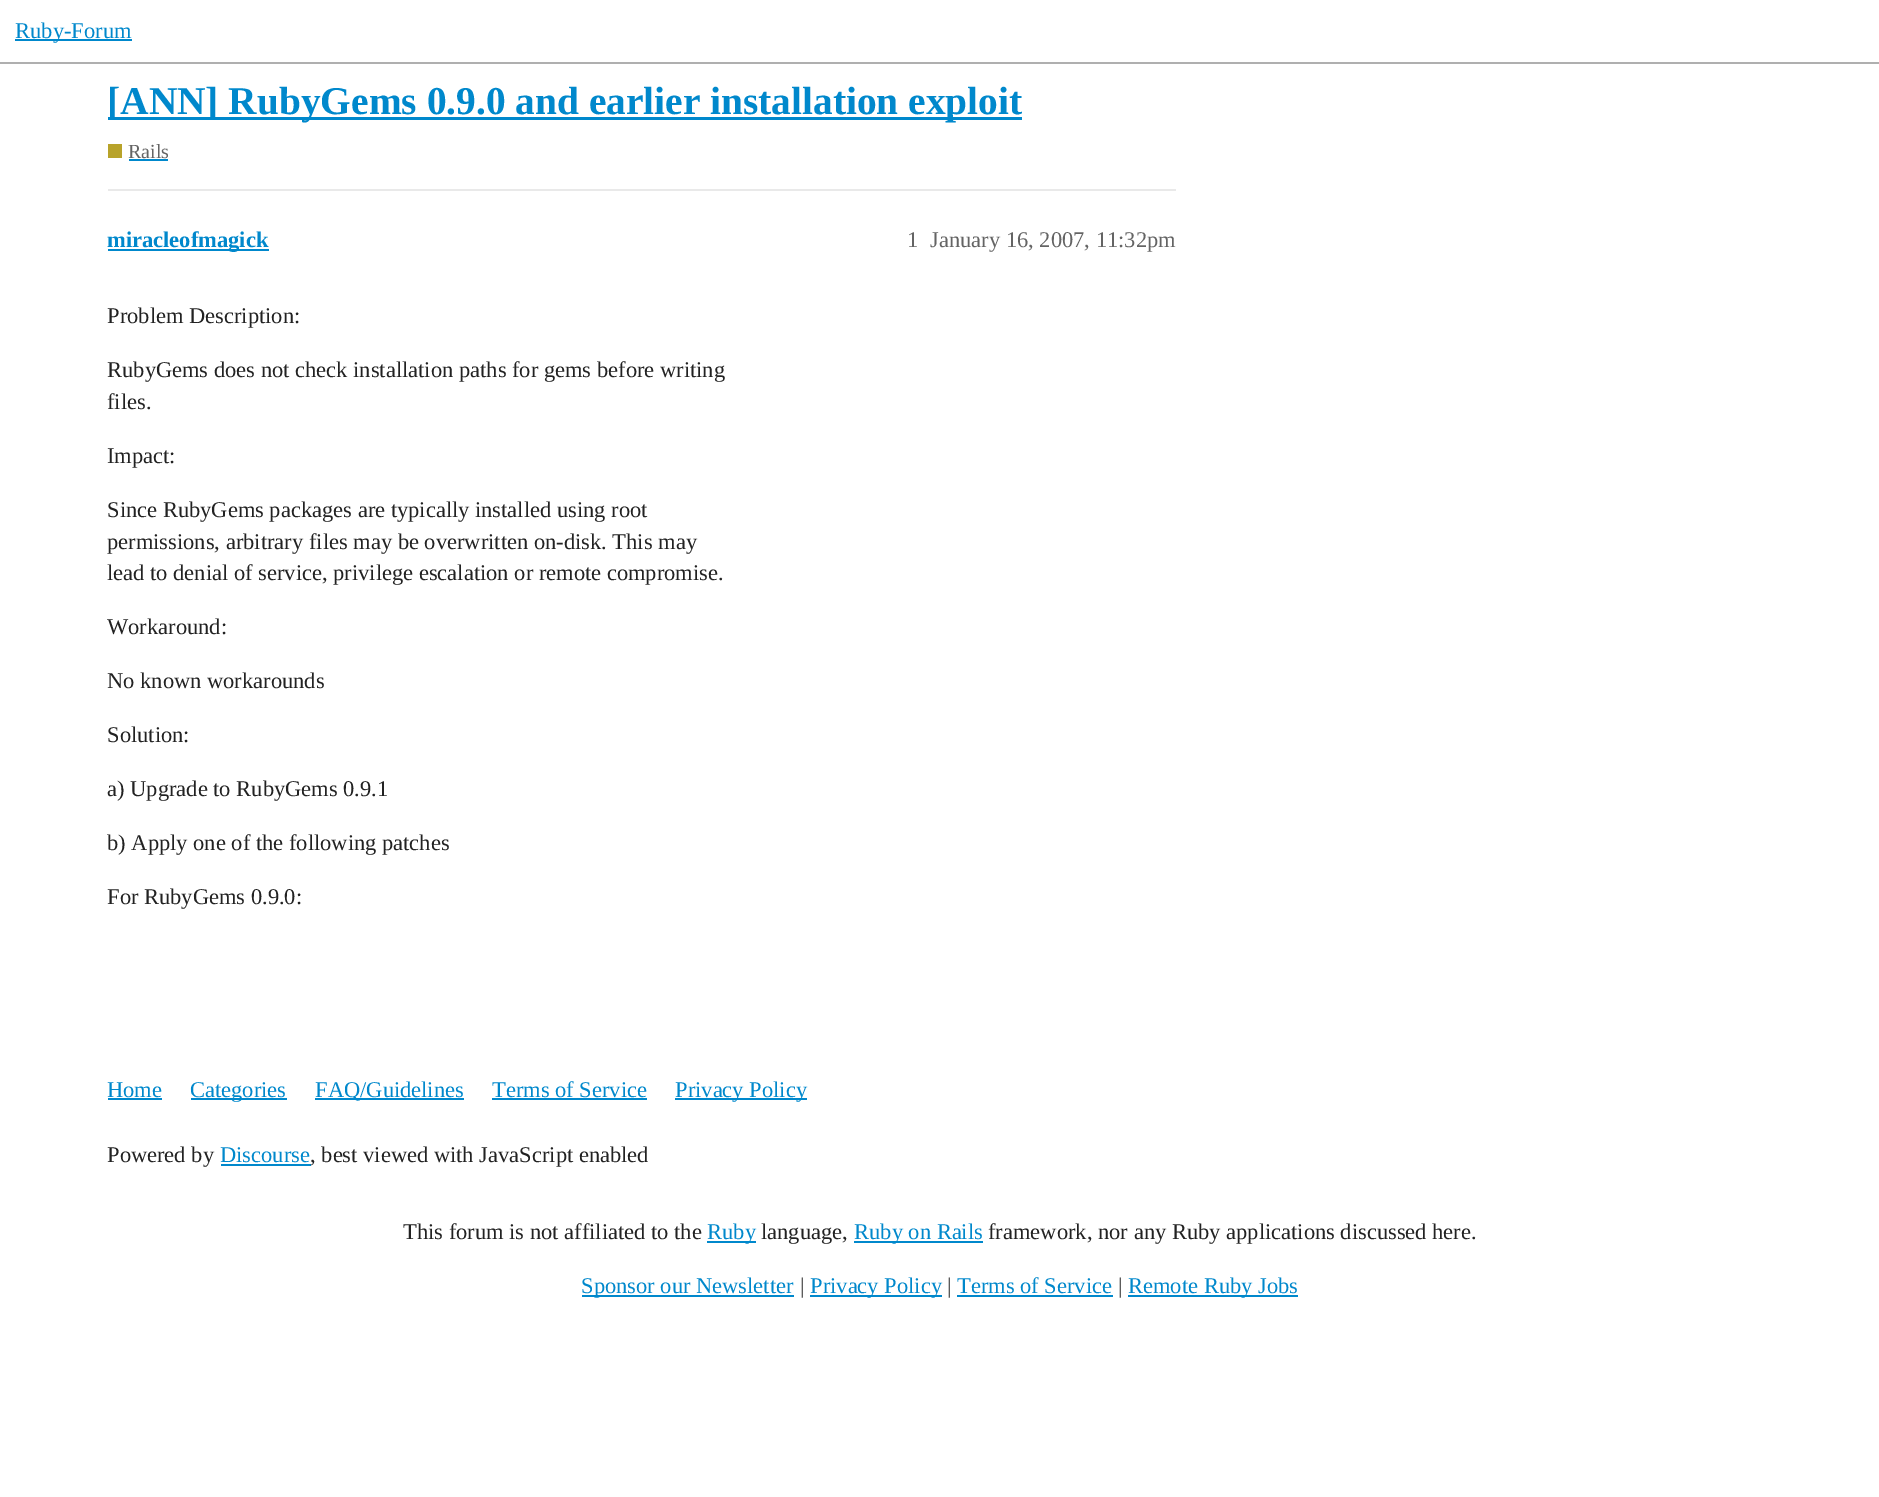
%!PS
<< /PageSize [1879 1497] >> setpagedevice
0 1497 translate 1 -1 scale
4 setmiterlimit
1 setgray
0 0 1879 1497 rectfill
0.686 setgray
0 62 1879 2 rectfill
0 0.533 0.8 setrgbcolor
15 39 117 2 rectfill
/LiberationSerif-Regular [22.5 0 0 -22.5 0 0] selectfont
15 38 moveto (Ruby-Forum) show
108 117 914 3 rectfill
/LiberationSerif-Bold [39.4 0 0 -39.4 0 0] selectfont
107 114 moveto ([ANN] RubyGems 0.9.0 and earlier installation exploit) show
0.722 0.639 0.165 setrgbcolor
108 144 14 14 rectfill
/LiberationSerif-Regular [20 0 0 -20 0 0] selectfont
0.392 setgray
128 158 moveto (Rails) show
0 0.533 0.8 setrgbcolor
129 159 39 2 rectfill
0.914 setgray
108 189 1068 2 rectfill
0 0.533 0.8 setrgbcolor
108 249 161 2 rectfill
/LiberationSerif-Bold [22.5 0 0 -22.5 0 0] selectfont
107 247 moveto (miracleofmagick) show
/LiberationSerif-Regular [22.5 0 0 -22.5 0 0] selectfont
0.392 setgray
907 247 moveto (1) show
930 247 moveto (January 16, 2007, 11:32pm) show
0.133 setgray
107 323 moveto (Problem Description:) show
107 377 moveto (RubyGems does not check installation paths for gems before writing) show
107 409 moveto (files.) show
107 463 moveto (Impact:) show
107 517 moveto (Since RubyGems packages are typically installed using root) show
107 549 moveto (permissions, arbitrary files may be overwritten on-disk. This may) show
107 580 moveto (lead to denial of service, privilege escalation or remote compromise.) show
107 634 moveto (Workaround:) show
107 688 moveto (No known workarounds) show
107 742 moveto (Solution:) show
107 796 moveto (a\) Upgrade to RubyGems 0.9.1) show
107 850 moveto (b\) Apply one of the following patches) show
107 904 moveto (For RubyGems 0.9.0:) show
0 0.533 0.8 setrgbcolor
107 1097 moveto (Home) show
108 1098 54 2 rectfill
191 1098 96 2 rectfill
190 1097 moveto (Categories) show
315 1098 149 2 rectfill
315 1097 moveto (FAQ/Guidelines) show
492 1097 moveto (Terms of Service) show
492 1098 155 2 rectfill
675 1098 132 2 rectfill
675 1097 moveto (Privacy Policy) show
0.133 setgray
107 1162 moveto (Powered by) show
0 0.533 0.8 setrgbcolor
220 1162 moveto (Discourse) show
221 1164 90 2 rectfill
0.133 setgray
310 1162 moveto (, best viewed with JavaScript enabled) show
403 1239 moveto (This forum is not affiliated to the) show
0 0.533 0.8 setrgbcolor
707 1241 49 2 rectfill
707 1239 moveto (Ruby) show
0.133 setgray
761 1239 moveto (language,) show
0 0.533 0.8 setrgbcolor
854 1241 129 2 rectfill
854 1239 moveto (Ruby on Rails) show
0.133 setgray
988 1239 moveto (framework, nor any Ruby applications discussed here.) show
0 0.533 0.8 setrgbcolor
582 1295 212 2 rectfill
581 1293 moveto (Sponsor our Newsletter) show
0.133 setgray
800 1293 moveto (|) show
0 0.533 0.8 setrgbcolor
810 1295 132 2 rectfill
810 1293 moveto (Privacy Policy) show
0.133 setgray
947 1293 moveto (|) show
0 0.533 0.8 setrgbcolor
957 1293 moveto (Terms of Service) show
957 1295 156 2 rectfill
0.133 setgray
1118 1293 moveto (|) show
0 0.533 0.8 setrgbcolor
1128 1295 170 2 rectfill
1128 1293 moveto (Remote Ruby Jobs) show
showpage
